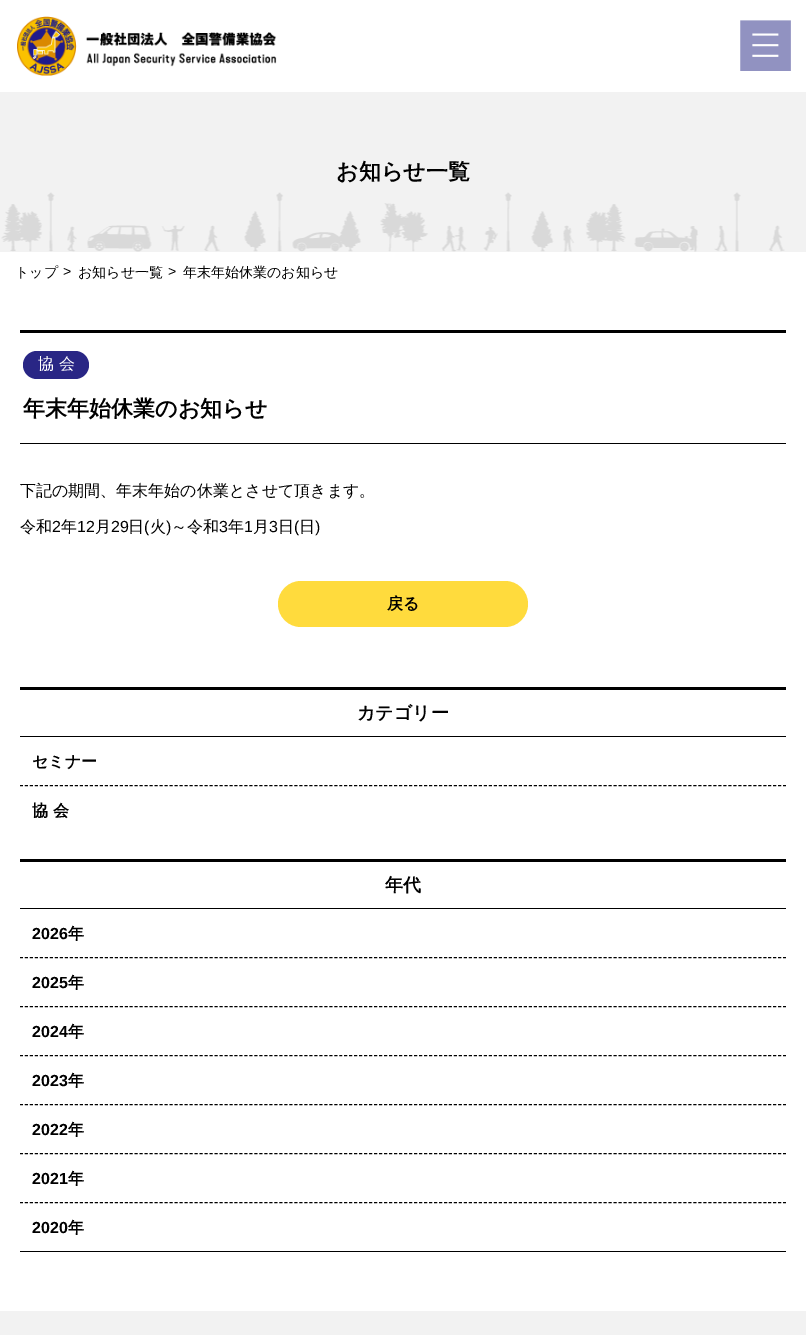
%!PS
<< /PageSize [806 1335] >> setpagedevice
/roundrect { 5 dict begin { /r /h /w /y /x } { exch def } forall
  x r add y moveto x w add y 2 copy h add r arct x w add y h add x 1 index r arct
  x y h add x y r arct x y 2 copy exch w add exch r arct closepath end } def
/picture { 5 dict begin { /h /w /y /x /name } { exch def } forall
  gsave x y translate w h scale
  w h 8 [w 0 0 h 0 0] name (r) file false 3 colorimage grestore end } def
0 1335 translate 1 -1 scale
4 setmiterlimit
1 setgray
0 0 806 1335 rectfill
(img1.rgb) 17 16 260 60 picture
(img2.rgb) 740 20 51 51 picture
0.949 setgray
0 92 806 160 rectfill
(img3.rgb) 1 192 784 60 picture
/WenQuanYiZenHei-Bold [22 0 0 -22 0 0] selectfont
0 setgray
336 179 moveto (お知らせ一覧) show
/WenQuanYiZenHei-Medium [14 0 0 -14 0 0] selectfont
15 277 moveto (トップ) show
/LiberationSans-Regular [14 0 0 -14 0 0] selectfont
63 276 moveto (>) show
/WenQuanYiZenHei-Medium [14 0 0 -14 0 0] selectfont
78 277 moveto (お知らせ一覧) show
/LiberationSans-Regular [14 0 0 -14 0 0] selectfont
168 276 moveto (>) show
/WenQuanYiZenHei-Medium [14 0 0 -14 0 0] selectfont
183 277 moveto (年末年始休業のお知らせ) show
20 330 766 3 rectfill
20 443 766 1 rectfill
0.161 0.149 0.522 setrgbcolor
23 351 66 28 14 roundrect fill
/WenQuanYiZenHei-Medium [16 0 0 -16 0 0] selectfont
1 setgray
38 369 moveto (協 会) show
/WenQuanYiZenHei-Bold [22 0 0 -22 0 0] selectfont
0 setgray
23 416 moveto (年末年始休業のお知らせ) show
/WenQuanYiZenHei-Medium [16 0 0 -16 0 0] selectfont
20 496 moveto (下記の期間、年末年始の休業とさせて頂きます。) show
20 532 moveto (令和) show
/LiberationSans-Regular [16 0 0 -16 0 0] selectfont
52 532 moveto (2) show
/WenQuanYiZenHei-Medium [16 0 0 -16 0 0] selectfont
61 532 moveto (年) show
/LiberationSans-Regular [16 0 0 -16 0 0] selectfont
77 532 moveto (12) show
/WenQuanYiZenHei-Medium [16 0 0 -16 0 0] selectfont
95 532 moveto (月) show
/LiberationSans-Regular [16 0 0 -16 0 0] selectfont
111 532 moveto (29) show
/WenQuanYiZenHei-Medium [16 0 0 -16 0 0] selectfont
128 532 moveto (日) show
/LiberationSans-Regular [16 0 0 -16 0 0] selectfont
144 532 moveto (\() show
/WenQuanYiZenHei-Medium [16 0 0 -16 0 0] selectfont
150 532 moveto (火) show
/LiberationSans-Regular [16 0 0 -16 0 0] selectfont
166 532 moveto (\)) show
/WenQuanYiZenHei-Medium [16 0 0 -16 0 0] selectfont
171 532 moveto (～令和) show
/LiberationSans-Regular [16 0 0 -16 0 0] selectfont
219 532 moveto (3) show
/WenQuanYiZenHei-Medium [16 0 0 -16 0 0] selectfont
228 532 moveto (年) show
/LiberationSans-Regular [16 0 0 -16 0 0] selectfont
244 532 moveto (1) show
/WenQuanYiZenHei-Medium [16 0 0 -16 0 0] selectfont
253 532 moveto (月) show
/LiberationSans-Regular [16 0 0 -16 0 0] selectfont
269 532 moveto (3) show
/WenQuanYiZenHei-Medium [16 0 0 -16 0 0] selectfont
278 532 moveto (日) show
/LiberationSans-Regular [16 0 0 -16 0 0] selectfont
294 532 moveto (\() show
/WenQuanYiZenHei-Medium [16 0 0 -16 0 0] selectfont
299 532 moveto (日) show
/LiberationSans-Regular [16 0 0 -16 0 0] selectfont
315 532 moveto (\)) show
1 0.859 0.239 setrgbcolor
278 581 250 46 23 roundrect fill
/WenQuanYiZenHei-Bold [16 0 0 -16 0 0] selectfont
0 setgray
387 609 moveto (戻る) show
20 1251 766 1 rectfill
20 687 766 3 rectfill
20 736 766 1 rectfill
/WenQuanYiZenHei-Bold [18 0 0 -18 0 0] selectfont
357 719 moveto (カテゴリー) show
[3 1.99] 0 setdash
newpath 20 785.5 moveto 786 785.5 lineto stroke
/WenQuanYiZenHei-Bold [16 0 0 -16 0 0] selectfont
32 767 moveto (セミナー) show
32 816 moveto (協 会) show
20 859 766 3 rectfill
20 908 766 1 rectfill
/WenQuanYiZenHei-Bold [18 0 0 -18 0 0] selectfont
385 891 moveto (年代) show
newpath 20 957.5 moveto 786 957.5 lineto stroke
/LiberationSans-Bold [16 0 0 -16 0 0] selectfont
32 939 moveto (2026) show
/WenQuanYiZenHei-Bold [16 0 0 -16 0 0] selectfont
68 939 moveto (年) show
newpath 20 1006.5 moveto 786 1006.5 lineto stroke
/LiberationSans-Bold [16 0 0 -16 0 0] selectfont
32 988 moveto (2025) show
/WenQuanYiZenHei-Bold [16 0 0 -16 0 0] selectfont
68 988 moveto (年) show
newpath 20 1055.5 moveto 786 1055.5 lineto stroke
/LiberationSans-Bold [16 0 0 -16 0 0] selectfont
32 1037 moveto (2024) show
/WenQuanYiZenHei-Bold [16 0 0 -16 0 0] selectfont
68 1037 moveto (年) show
newpath 20 1104.5 moveto 786 1104.5 lineto stroke
/LiberationSans-Bold [16 0 0 -16 0 0] selectfont
32 1086 moveto (2023) show
/WenQuanYiZenHei-Bold [16 0 0 -16 0 0] selectfont
68 1086 moveto (年) show
newpath 20 1153.5 moveto 786 1153.5 lineto stroke
/LiberationSans-Bold [16 0 0 -16 0 0] selectfont
32 1135 moveto (2022) show
/WenQuanYiZenHei-Bold [16 0 0 -16 0 0] selectfont
68 1135 moveto (年) show
newpath 20 1202.5 moveto 786 1202.5 lineto stroke
/LiberationSans-Bold [16 0 0 -16 0 0] selectfont
32 1184 moveto (2021) show
/WenQuanYiZenHei-Bold [16 0 0 -16 0 0] selectfont
68 1184 moveto (年) show
/LiberationSans-Bold [16 0 0 -16 0 0] selectfont
32 1233 moveto (2020) show
/WenQuanYiZenHei-Bold [16 0 0 -16 0 0] selectfont
68 1233 moveto (年) show
0.949 setgray
0 1311 806 24 rectfill
showpage
